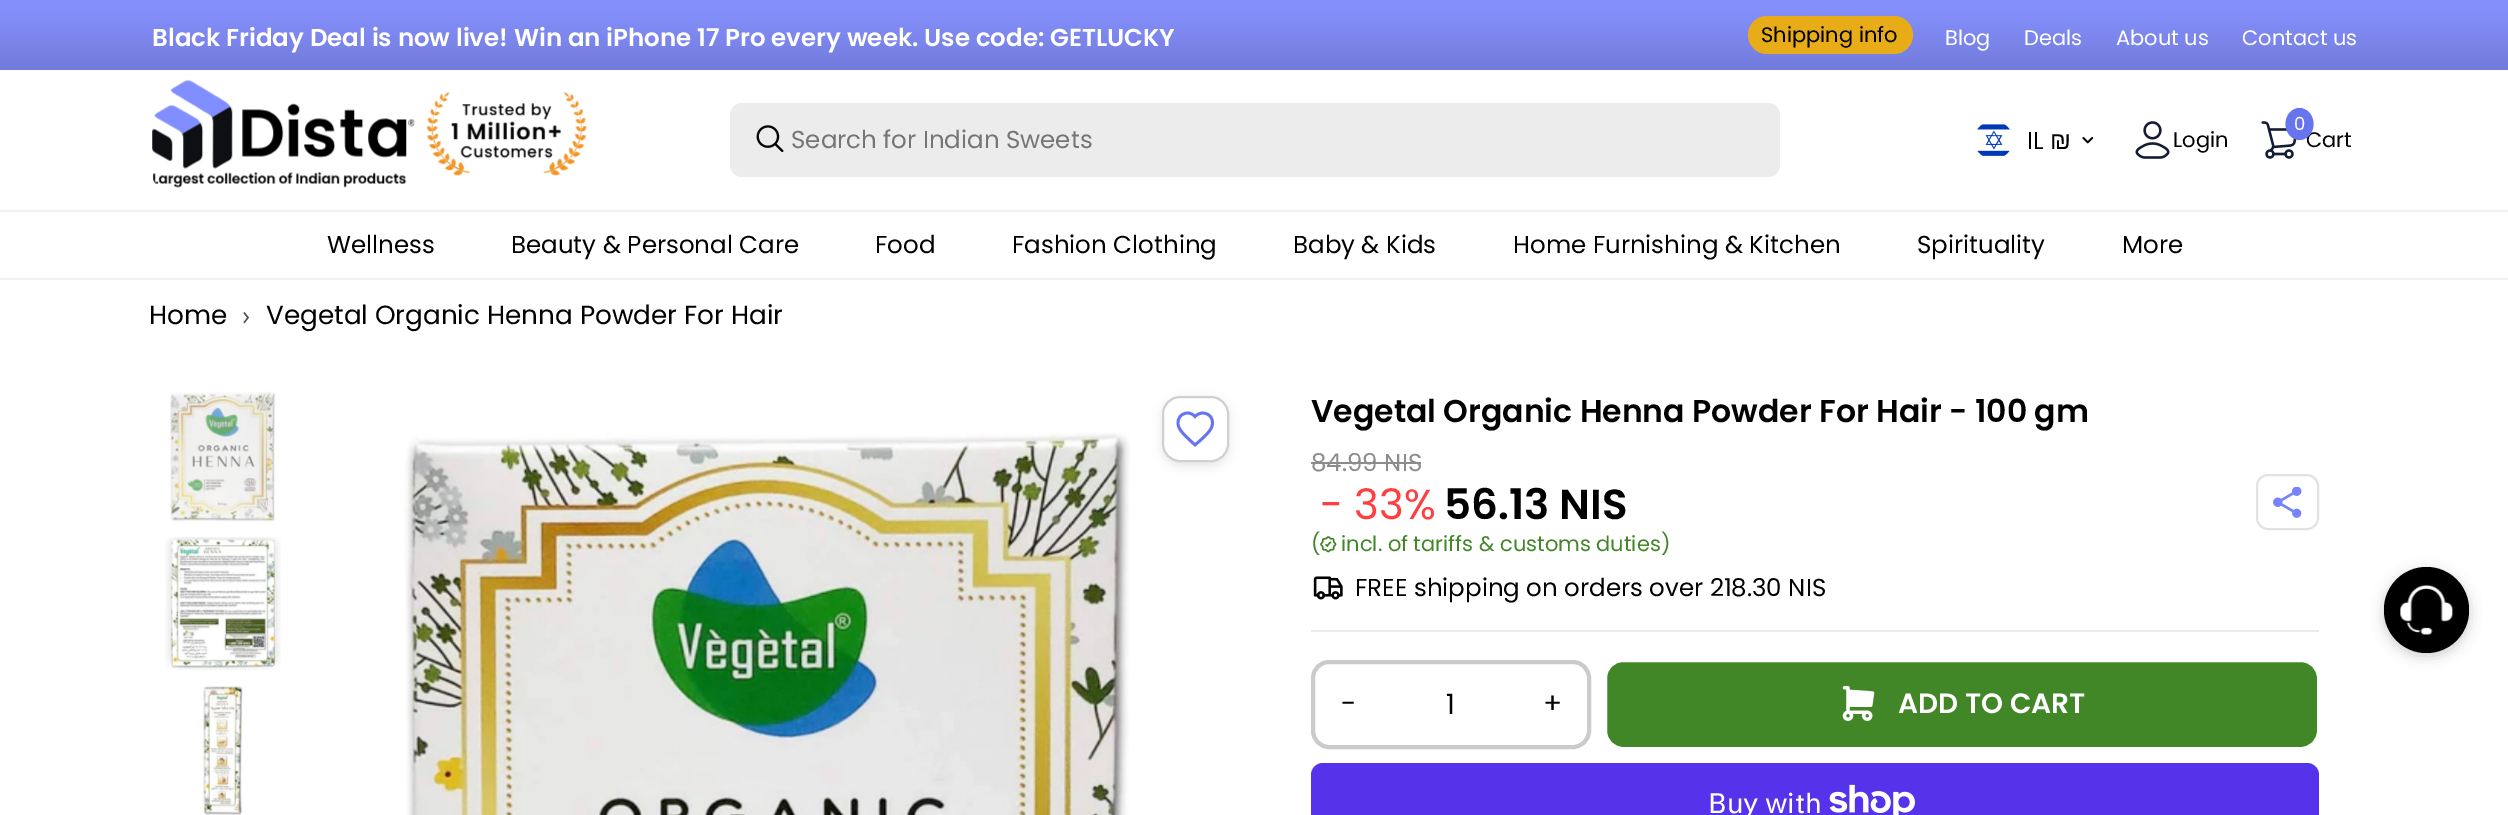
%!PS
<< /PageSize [2508 815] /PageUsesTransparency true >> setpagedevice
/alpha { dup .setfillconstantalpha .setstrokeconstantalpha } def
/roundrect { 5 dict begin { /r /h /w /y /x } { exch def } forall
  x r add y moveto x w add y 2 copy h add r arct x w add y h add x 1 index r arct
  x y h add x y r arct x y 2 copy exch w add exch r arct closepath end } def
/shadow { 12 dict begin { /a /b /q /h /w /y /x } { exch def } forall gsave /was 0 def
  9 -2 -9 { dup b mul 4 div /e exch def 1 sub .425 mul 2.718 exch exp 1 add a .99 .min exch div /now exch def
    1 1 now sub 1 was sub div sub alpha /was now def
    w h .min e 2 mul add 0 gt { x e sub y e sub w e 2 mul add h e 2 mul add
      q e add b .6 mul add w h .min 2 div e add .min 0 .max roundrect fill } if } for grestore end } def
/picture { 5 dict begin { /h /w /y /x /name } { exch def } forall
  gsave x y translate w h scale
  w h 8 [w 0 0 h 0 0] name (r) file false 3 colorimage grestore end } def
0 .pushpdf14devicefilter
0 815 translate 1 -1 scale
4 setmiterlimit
1 setgray
0 0 2508 815 rectfill
gsave newpath 0 0 moveto 2508 0 lineto 2508 70 lineto 0 70 lineto closepath clip newpath
<< /ShadingType 2 /ColorSpace /DeviceRGB /Coords [1255 0 1255 186] /Extend [true true] /Function << /FunctionType 3 /Domain [0 1] /Functions [<< /FunctionType 2 /Domain [0 1] /C0 [0.518 0.561 0.988] /C1 [0.518 0.561 0.988] /N 1 >> << /FunctionType 2 /Domain [0 1] /C0 [0.518 0.561 0.988] /C1 [0.31 0.333 0.588] /N 1 >>] /Bounds [0.06] /Encode [0 1 0 1] >> >> shfill grestore
/Poppins-SemiBold [24.5 0 0 -24.5 0 0] selectfont
152 46 moveto (Black Friday Deal is now live! Win an iPhone 17 Pro every week. Use code: GETLUCKY) show
0.906 0.675 0.09 setrgbcolor
1748 16 165 38 19 roundrect fill
/Poppins-Regular [21 0 0 -21 0 0] selectfont
0 setgray
1761 42 moveto (Shipping info) show
1 setgray
1945 45 moveto (Blog) show
2024 45 moveto (Deals) show
2116 45 moveto (About us) show
2242 45 moveto (Contact us) show
(img1.rgb) 152 80 264 108 picture
(img2.rgb) 426 92 161 84 picture
0.925 setgray
730 103 1050 74 12 roundrect fill
(img3.rgb) 756 125 28 27 picture
/Poppins-Regular [24.5 0 0 -24.5 0 0] selectfont
0.459 setgray
791 148 moveto (Search for Indian Sweets) show
(img4.rgb) 1977 124 33 32 picture
0 setgray
2027 149 moveto (IL) show
/LiberationSans-Regular [24.5 0 0 -24.5 0 0] selectfont
2050 149 moveto (₪) show
(img5.rgb) 2082 137 12 7 picture
(img6.rgb) 2135 121 35 38 picture
/Poppins-Regular [21 0 0 -21 0 0] selectfont
2173 147 moveto (Login) show
(img7.rgb) 2261 121 36 38 picture
2306 147 moveto (Cart) show
0.4 0.459 0.929 setrgbcolor
newpath 2299.5 108 moveto 2307 108 2313.5 115 2313.5 124 curveto 2313.5 133 2307 140 2299.5 140 curveto 2292 140 2285.5 133 2285.5 124 curveto 2285.5 115 2292 108 2299.5 108 curveto closepath fill
/Poppins-Regular [18 0 0 -18 0 0] selectfont
1 setgray
2294 130 moveto (0) show
0.953 0.949 0.949 setrgbcolor
0 210 2508 2 rectfill
0 278 2508 2 rectfill
/Poppins-Regular [24.5 0 0 -24.5 0 0] selectfont
0 setgray
327 253 moveto (Wellness) show
511 253 moveto (Beauty & Personal Care) show
875 253 moveto (Food) show
1012 253 moveto (Fashion Clothing) show
1293 253 moveto (Baby & Kids) show
1513 253 moveto (Home Furnishing & Kitchen) show
1917 253 moveto (Spirituality) show
2122 253 moveto (More) show
/Poppins-Regular [26.25 0 0 -26.25 0 0] selectfont
149 324 moveto (Home) show
(img8.rgb) 243 312 6 12 picture
266 324 moveto (Vegetal Organic Henna Powder For Hair) show
(img9.rgb) 169 390 107 132 picture
(img10.rgb) 165 537 116 133 picture
(img11.rgb) 202 686 41 129 picture
(img12.rgb) 404 430 726 385 picture
1162 399 67 67 18 5 0.1 shadow
1 setgray
1163 397 65 64 17 roundrect gsave fill grestore
0.816 setgray
2 setlinewidth
stroke
0.4 0.459 0.929 setrgbcolor
2.8 setlinewidth
newpath 1195 445 moveto 1190 440 1182 434 1179 427.5 curveto 1174 416 1187.5 408 1195 416.5 curveto 1203 408 1216.5 416 1211.5 427.5 curveto 1208.5 434 1200.5 440 1195 445 curveto closepath stroke
/Poppins-SemiBold [31.5 0 0 -31.5 0 0] selectfont
0 setgray
1311 422 moveto (Vegetal Organic Henna Powder For Hair - 100 gm) show
/Poppins-Regular [24.5 0 0 -24.5 0 0] selectfont
0.549 setgray
1311 471 moveto (84.99 NIS) show
1311 462 110 2 rectfill
/Poppins-Regular [42 0 0 -42 0 0] selectfont
1 0.247 0.247 setrgbcolor
1320 519 moveto (- 33%) show
/Poppins-SemiBold [42 0 0 -42 0 0] selectfont
0 setgray
1444 519 moveto (56.13 NIS) show
/Poppins-Regular [21 0 0 -21 0 0] selectfont
0.255 0.529 0.153 setrgbcolor
1311 551 moveto (\() show
(img13.rgb) 1320 536 17 17 picture
1341 551 moveto (incl. of tariffs & customs duties\)) show
0.886 setgray
2 setlinewidth
2257 475 61 54 11 roundrect stroke
(img14.rgb) 2273 487 29 31 picture
0.925 setgray
1311 630 1008 2 rectfill
(img15.rgb) 1313 576 30 24 picture
/Poppins-Regular [24.5 0 0 -24.5 0 0] selectfont
0 setgray
1355 596 moveto (FREE shipping on orders over 218.30 NIS) show
0.796 setgray
4 setlinewidth
1313 662 276 85 16 roundrect stroke
/Poppins-Regular [28 0 0 -28 0 0] selectfont
0 setgray
1341 713 moveto (-) show
1446 714 moveto (1) show
1543 713 moveto (+) show
0.255 0.529 0.153 setrgbcolor
1606 661 712 87 17 roundrect gsave fill grestore
1 setgray
2 setlinewidth
stroke
(img16.rgb) 1842 686 33 35 picture
/Poppins-SemiBold [28 0 0 -28 0 0] selectfont
1898 713 moveto (ADD TO CART) show
0.329 0.2 0.922 setrgbcolor
1311 763 1008 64 12 roundrect fill
/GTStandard-Regular [28 0 0 -28 0 0] selectfont
1 setgray
1708 813 moveto (Buy with) show
(img17.rgb) 1829 784 86 31 picture
0 setgray
2384 571 85 85 42.5 6.5 0.2 shadow
2384 567 85 86 42.5 roundrect fill
(img18.rgb) 2400 584 53 51 picture
.poppdf14devicefilter showpage
